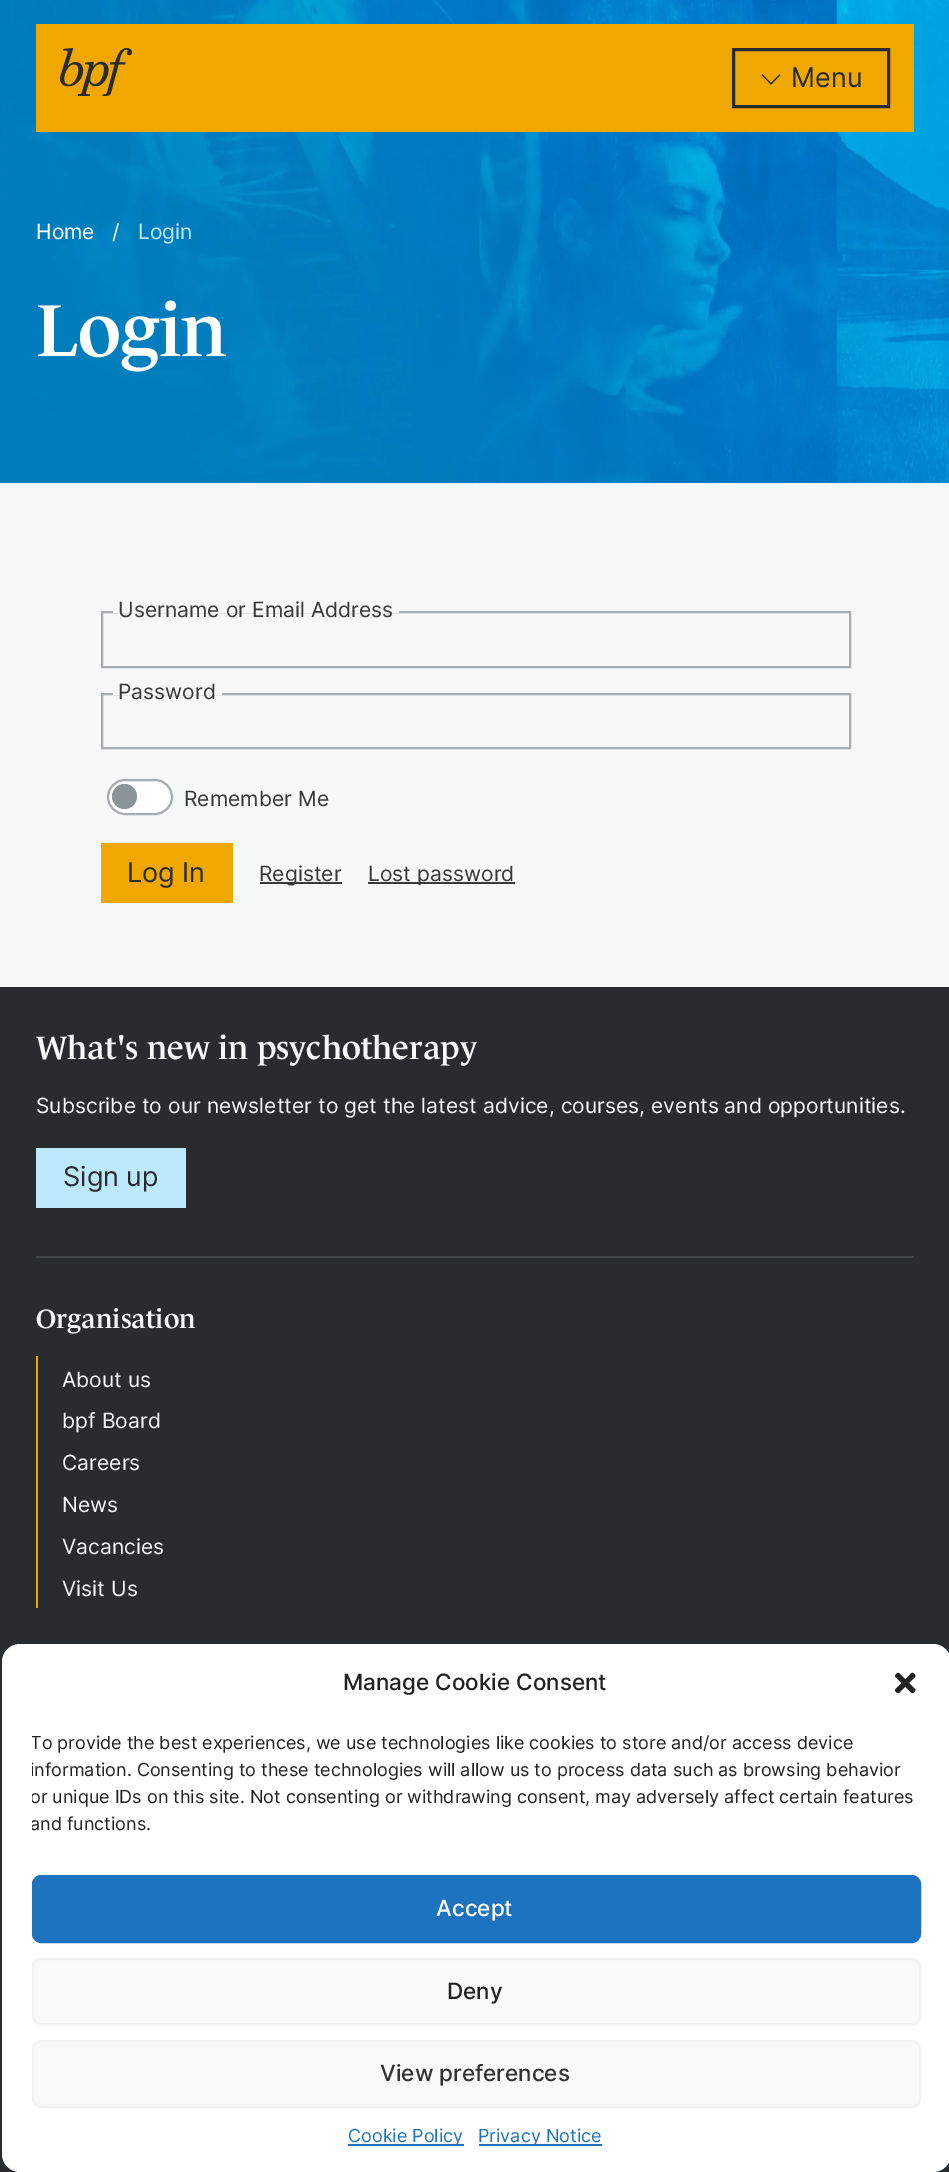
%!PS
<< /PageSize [949 2172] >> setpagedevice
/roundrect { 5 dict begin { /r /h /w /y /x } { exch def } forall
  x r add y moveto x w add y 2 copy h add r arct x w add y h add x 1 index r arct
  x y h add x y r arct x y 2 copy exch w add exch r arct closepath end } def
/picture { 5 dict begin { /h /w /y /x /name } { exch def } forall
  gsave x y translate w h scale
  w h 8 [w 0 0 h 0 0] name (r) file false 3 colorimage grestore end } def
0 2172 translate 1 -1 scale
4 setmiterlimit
0.969 0.973 0.973 setrgbcolor
0 0 949 2172 rectfill
(img3.rgb) 0 0 949 483 picture
0.941 0.659 0 setrgbcolor
36 24 878 108 rectfill
(img1.rgb) 60 48 72 48 picture
0.161 0.173 0.18 setrgbcolor
3 setlinewidth
733.5 49.5 155 57 rectstroke
(img2.rgb) 761 74 20 11 picture
/Inter-Regular [27 0 0 -27 0 0] selectfont
791 87 moveto (Menu) show
/Inter-Regular [21 0 0 -21 0 0] selectfont
1 setgray
36 239 moveto (Home) show
112 239 moveto (/) show
0.741 0.914 1 setrgbcolor
138 239 moveto (Login) show
/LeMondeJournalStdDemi-Bold [75 0 0 -75 0 0] selectfont
1 setgray
36 356 moveto -0.5 0 (Login) ashow
0.651 0.678 0.69 setrgbcolor
2 setlinewidth
102 612 748 55 rectstroke
0.969 0.973 0.973 setrgbcolor
113 611 286 2 rectfill
/Inter-Regular [21 0 0 -21 0 0] selectfont
0.216 0.227 0.212 setrgbcolor
118 617 moveto 0.05 0 (Username or Email Address) ashow
0.651 0.678 0.69 setrgbcolor
102 694 748 54 rectstroke
0.969 0.973 0.973 setrgbcolor
113 693 109 2 rectfill
0.216 0.227 0.212 setrgbcolor
118 699 moveto 0.05 0 (Password) ashow
1 setgray
107 779 66 36 18 roundrect fill
0.545 0.58 0.596 setrgbcolor
newpath 124.5 796.5 12.5 0 360 arc closepath fill
0.651 0.678 0.69 setrgbcolor
108 780 64 34 17 roundrect stroke
0.216 0.227 0.212 setrgbcolor
184 806 moveto 0.05 0 (Remember Me) ashow
0.941 0.659 0 setrgbcolor
101 843 132 60 rectfill
/Inter-Regular [27 0 0 -27 0 0] selectfont
0.161 0.173 0.18 setrgbcolor
127 882 moveto (Log In) show
0.216 0.227 0.212 setrgbcolor
260 882 82 2 rectfill
/Inter-Regular [21 0 0 -21 0 0] selectfont
259 881 moveto 0.05 0 (Register) ashow
368 882 147 2 rectfill
368 881 moveto 0.05 0 (Lost password) ashow
0.161 0.173 0.18 setrgbcolor
0 987 949 1185 rectfill
/LeMondeJournalStdDemi-Bold [33 0 0 -33 0 0] selectfont
0.969 0.973 0.973 setrgbcolor
36 1059 moveto 0.05 0 (What's new in psychotherapy) ashow
/Inter-Regular [21 0 0 -21 0 0] selectfont
36 1113 moveto 0.05 0 (Subscribe to our newsletter to get the latest advice, courses, events and opportunities.) ashow
0.741 0.914 1 setrgbcolor
36 1148 150 60 rectfill
/Inter-Regular [27 0 0 -27 0 0] selectfont
0.161 0.173 0.18 setrgbcolor
63 1186 moveto (Sign up) show
0.255 0.275 0.286 setrgbcolor
36 1256 878 2 rectfill
/LeMondeJournalStdDemi-Bold [27 0 0 -27 0 0] selectfont
0.969 0.973 0.973 setrgbcolor
36 1328 moveto 0.1 0 (Organisation) ashow
0.941 0.659 0 setrgbcolor
36 1356 2 252 rectfill
/Inter-Regular [21 0 0 -21 0 0] selectfont
0.969 0.973 0.973 setrgbcolor
62 1387 moveto 0.05 0 (About us) ashow
62 1428 moveto 0.05 0 (bpf Board) ashow
62 1470 moveto 0.05 0 (Careers) ashow
62 1512 moveto 0.05 0 (News) ashow
62 1554 moveto 0.05 0 (Vacancies) ashow
62 1596 moveto 0.05 0 (Visit Us) ashow
1 setgray
2 1644 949 528 18 roundrect fill
/Inter-Medium [22.5 0 0 -22.5 0 0] selectfont
0.133 setgray
343 1690 moveto (Manage Cookie Consent) show
(img4.rgb) 895 1672 21 22 picture
gsave
32 1730 889 115 rectclip
/Inter-Regular [18 0 0 -18 0 0] selectfont
30 1749 moveto (To provide the best experiences, we use technologies like cookies to store and/or access device) show
30 1776 moveto (information. Consenting to these technologies will allow us to process data such as browsing behavior) show
30 1803 moveto (or unique IDs on this site. Not consenting or withdrawing consent, may adversely affect certain features) show
30 1830 moveto (and functions.) show
grestore
0.118 0.451 0.745 setrgbcolor
33 1876 887 66 8 roundrect gsave fill grestore
stroke
1 setgray
436 1916 moveto (Accept) show
0.976 setgray
33 1959 887 65 8 roundrect gsave fill grestore
0.949 setgray
stroke
0.133 setgray
447 1999 moveto (Deny) show
0.976 setgray
33 2041 887 66 8 roundrect gsave fill grestore
0.949 setgray
stroke
0.2 setgray
380 2081 moveto (View preferences) show
0.118 0.451 0.745 setrgbcolor
348 2144 116 2 rectfill
/Inter-Regular [18 0 0 -18 0 0] selectfont
348 2142 moveto (Cookie Policy) show
479 2144 123 2 rectfill
478 2142 moveto (Privacy Notice) show
showpage
